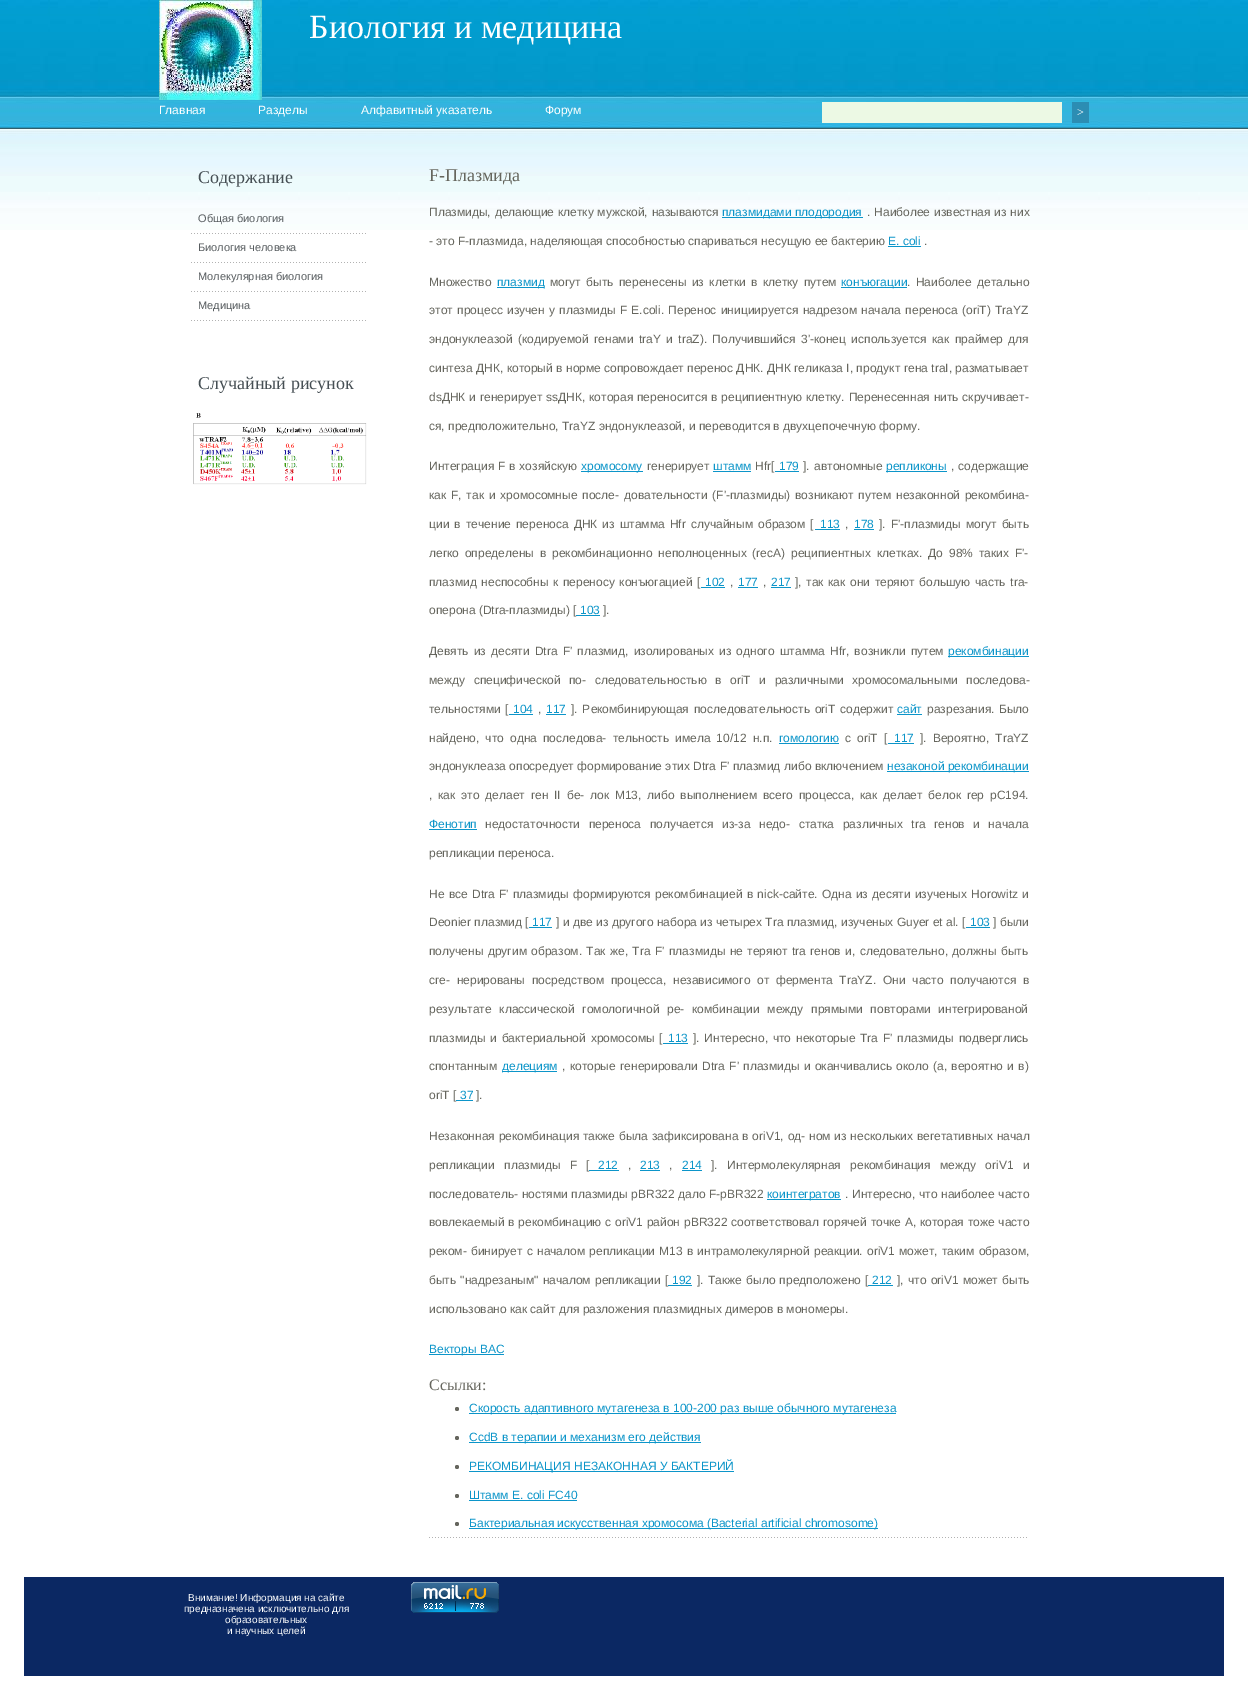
%!PS
<< /PageSize [1248 1689] >> setpagedevice
/picture { 5 dict begin { /h /w /y /x /name } { exch def } forall
  gsave x y translate w h scale
  w h 8 [w 0 0 h 0 0] name (r) file false 3 colorimage grestore end } def
0 1689 translate 1 -1 scale
4 setmiterlimit
1 setgray
0 0 1248 1689 rectfill
(img1.rgb) 0 0 1248 230 picture
(img2.rgb) 159 0 103 100 picture
/LiberationSerif-Regular [34 0 0 -34 0 0] selectfont
309 38 moveto (Биология и медицина) show
/LiberationSans-Regular [12 0 0 -12 0 0] selectfont
159 114 moveto (Главная) show
258 114 moveto (Разделы) show
361 114 moveto (Алфавитный указатель) show
545 114 moveto (Форум) show
0.925 0.976 0.894 setrgbcolor
822 102 240 21 rectfill
0.173 0.553 0.702 setrgbcolor
1072 102 17 21 rectfill
/LiberationSerif-Regular [12 0 0 -12 0 0] selectfont
1 setgray
1077 116 moveto (>) show
/LiberationSerif-Regular [18 0 0 -18 0 0] selectfont
0.275 0.31 0.329 setrgbcolor
198 183 moveto (Содержание) show
(img3.rgb) 191 233 175 1 picture
/LiberationSans-Regular [11 0 0 -11 0 0] selectfont
0.345 0.365 0.376 setrgbcolor
198 222 moveto (Общая биология) show
(img3.rgb) 191 262 175 1 picture
198 251 moveto (Биология человека) show
(img3.rgb) 191 291 175 1 picture
198 280 moveto (Молекулярная биология) show
(img3.rgb) 191 320 175 1 picture
198 309 moveto (Медицина) show
/LiberationSerif-Regular [18 0 0 -18 0 0] selectfont
0.275 0.31 0.329 setrgbcolor
198 389 moveto (Случайный рисунок) show
(img4.rgb) 193 413 174 72 picture
(img5.rgb) 429 1537 598 1 picture
0.4 0.4 0.369 setrgbcolor
429 181 moveto (F-Плазмида) show
/LiberationSans-Regular [12 0 0 -12 0 0] selectfont
429 216 moveto 0.5 0 32 (Плазмиды, делающие клетку мужской, называются) widthshow
0.047 0.584 0.788 setrgbcolor
722 217 141 1 rectfill
722 216 moveto (плазмидами плодородия) show
0.4 0.4 0.369 setrgbcolor
867 216 moveto 0.5 0 32 (. Наиболее известная из них) widthshow
429 245 moveto (- это F-плазмида, наделяющая способностью спариваться несущую ее бактерию) show
0.047 0.584 0.788 setrgbcolor
888 245 moveto (E. coli) show
888 246 33 1 rectfill
0.4 0.4 0.369 setrgbcolor
924 245 moveto (.) show
429 286 moveto (Множество) show
0.047 0.584 0.788 setrgbcolor
497 287 47 1 rectfill
497 286 moveto (плазмид) show
0.4 0.4 0.369 setrgbcolor
550 286 moveto 2 0 32 (могут быть перенесены из клетки в клетку путем) widthshow
0.047 0.584 0.788 setrgbcolor
841 287 66 1 rectfill
841 286 moveto (конъюгации) show
0.4 0.4 0.369 setrgbcolor
907 286 moveto 2 0 32 (. Наиболее детально) widthshow
429 314 moveto 1 0 32 (этот процесс изучен у плазмиды F E.coli. Перенос инициируется надрезом начала переноса \(oriT\) TraYZ) widthshow
429 343 moveto 2.1 0 32 (эндонуклеазой \(кодируемой генами traY и traZ\). Получившийся 3'-конец используется как праймер для) widthshow
429 372 moveto 0.1 0 32 (синтеза ДНК, который в норме сопровождает перенос ДНК. ДНК геликаза I, продукт гена traI, разматывает) widthshow
429 401 moveto 0.5 0 32 (dsДНК и генерирует ssДНК, которая переносится в реципиентную клетку. Перенесенная нить скручивает-) widthshow
429 430 moveto (ся, предположительно, TraYZ эндонуклеазой, и переводится в двухцепочечную форму.) show
429 470 moveto 0.5 0 32 (Интеграция F в хозяйскую) widthshow
0.047 0.584 0.788 setrgbcolor
581 471 62 1 rectfill
581 470 moveto (хромосому) show
0.4 0.4 0.369 setrgbcolor
647 470 moveto (генерирует) show
0.047 0.584 0.788 setrgbcolor
713 470 moveto (штамм) show
713 471 38 1 rectfill
0.4 0.4 0.369 setrgbcolor
755 470 moveto (Hfr[) show
0.047 0.584 0.788 setrgbcolor
779 470 moveto (179) show
775 471 24 1 rectfill
0.4 0.4 0.369 setrgbcolor
803 470 moveto 1 0 32 (]. автономные) widthshow
0.047 0.584 0.788 setrgbcolor
886 471 61 1 rectfill
886 470 moveto (репликоны) show
0.4 0.4 0.369 setrgbcolor
951 470 moveto 0.5 0 32 (, содержащие) widthshow
429 499 moveto 1.5 0 32 (как F, так и хромосомные после- довательности \(F'-плазмиды\) возникают путем незаконной рекомбина-) widthshow
429 528 moveto 1.75 0 32 (ции в течение переноса ДНК из штамма Hfr случайным образом [) widthshow
0.047 0.584 0.788 setrgbcolor
820 528 moveto (113) show
815 529 25 1 rectfill
0.4 0.4 0.369 setrgbcolor
845 528 moveto (,) show
0.047 0.584 0.788 setrgbcolor
854 528 moveto (178) show
854 529 20 1 rectfill
0.4 0.4 0.369 setrgbcolor
879 528 moveto 1.75 0 32 (]. F'-плазмиды могут быть) widthshow
429 557 moveto 2.5 0 32 (легко определены в рекомбинационно неполноценных \(recA\) реципиентных клетках. До 98% таких F'-) widthshow
429 586 moveto 1.25 0 32 (плазмид неспособны к переносу конъюгацией [) widthshow
0.047 0.584 0.788 setrgbcolor
705 586 moveto (102) show
701 587 24 1 rectfill
0.4 0.4 0.369 setrgbcolor
730 586 moveto (,) show
0.047 0.584 0.788 setrgbcolor
738 586 moveto (177) show
738 587 20 1 rectfill
0.4 0.4 0.369 setrgbcolor
763 586 moveto (,) show
0.047 0.584 0.788 setrgbcolor
771 586 moveto (217) show
771 587 20 1 rectfill
0.4 0.4 0.369 setrgbcolor
795 586 moveto 1.25 0 32 (], так как они теряют большую часть tra-) widthshow
429 614 moveto (оперона \(Dtra-плазмиды\) [) show
0.047 0.584 0.788 setrgbcolor
580 614 moveto (103) show
576 615 24 1 rectfill
0.4 0.4 0.369 setrgbcolor
603 614 moveto (].) show
429 655 moveto 1.9 0 32 (Девять из десяти Dtra F' плазмид, изолированых из одного штамма Hfr, возникли путем) widthshow
0.047 0.584 0.788 setrgbcolor
948 656 81 1 rectfill
948 655 moveto (рекомбинации) show
0.4 0.4 0.369 setrgbcolor
429 684 moveto 5.25 0 32 (между специфической по- следовательностью в oriT и различными хромосомальными последова-) widthshow
429 713 moveto 1 0 32 (тельностями [) widthshow
0.047 0.584 0.788 setrgbcolor
513 713 moveto (104) show
509 714 24 1 rectfill
0.4 0.4 0.369 setrgbcolor
538 713 moveto (,) show
0.047 0.584 0.788 setrgbcolor
546 713 moveto (117) show
546 714 20 1 rectfill
0.4 0.4 0.369 setrgbcolor
571 713 moveto 1.5 0 32 (]. Рекомбинирующая последовательность oriT содержит) widthshow
0.047 0.584 0.788 setrgbcolor
897 713 moveto (сайт) show
897 714 25 1 rectfill
0.4 0.4 0.369 setrgbcolor
927 713 moveto 1 0 32 (разрезания. Было) widthshow
429 742 moveto 2.75 0 32 (найдено, что одна последова- тельность имела 10/12 н.п.) widthshow
0.047 0.584 0.788 setrgbcolor
779 742 moveto (гомологию) show
779 743 60 1 rectfill
0.4 0.4 0.369 setrgbcolor
845 742 moveto 2.75 0 32 (с oriT [) widthshow
0.047 0.584 0.788 setrgbcolor
894 742 moveto (117) show
888 743 26 1 rectfill
0.4 0.4 0.369 setrgbcolor
920 742 moveto 2.75 0 32 (]. Вероятно, TraYZ) widthshow
429 770 moveto 0.25 0 32 (эндонуклеаза опосредует формирование этих Dtra F' плазмид либо включением) widthshow
0.047 0.584 0.788 setrgbcolor
887 771 142 1 rectfill
887 770 moveto (незаконой рекомбинации) show
0.4 0.4 0.369 setrgbcolor
429 799 moveto 2.5 0 32 (, как это делает ген II бе- лок M13, либо выполнением всего процесса, как делает белок rep pC194.) widthshow
0.047 0.584 0.788 setrgbcolor
429 828 moveto (Фенотип) show
429 829 48 1 rectfill
0.4 0.4 0.369 setrgbcolor
485 828 moveto 5.25 0 32 (недостаточности переноса получается из-за недо- статка различных tra генов и начала) widthshow
429 857 moveto (репликации переноса.) show
429 898 moveto 0.9 0 32 (Не все Dtra F' плазмиды формируются рекомбинацией в nick-сайте. Одна из десяти изученых Horowitz и) widthshow
429 926 moveto (Deonier плазмид [) show
0.047 0.584 0.788 setrgbcolor
532 926 moveto (117) show
529 927 23 1 rectfill
0.4 0.4 0.369 setrgbcolor
556 926 moveto (] и две из другого набора из четырех Tra плазмид, изученых Guyer et al. [) show
0.047 0.584 0.788 setrgbcolor
970 926 moveto (103) show
966 927 24 1 rectfill
0.4 0.4 0.369 setrgbcolor
993 926 moveto (] были) show
429 955 moveto 1.1 0 32 (получены другим образом. Так же, Tra F' плазмиды не теряют tra генов и, следовательно, должны быть) widthshow
429 984 moveto 3.4 0 32 (сге- нерированы посредством процесса, независимого от фермента TraYZ. Они часто получаются в) widthshow
429 1013 moveto 4.5 0 32 (результате классической гомологичной ре- комбинации между прямыми повторами интегрированой) widthshow
429 1042 moveto 1.5 0 32 (плазмиды и бактериальной хромосомы [) widthshow
0.047 0.584 0.788 setrgbcolor
668 1042 moveto (113) show
663 1043 25 1 rectfill
0.4 0.4 0.369 setrgbcolor
693 1042 moveto 1.5 0 32 (]. Интересно, что некоторые Tra F' плазмиды подверглись) widthshow
429 1070 moveto (спонтанным) show
0.047 0.584 0.788 setrgbcolor
502 1071 55 1 rectfill
502 1070 moveto (делециям) show
0.4 0.4 0.369 setrgbcolor
562 1070 moveto 1 0 32 (, которые генерировали Dtra F' плазмиды и оканчивались около \(а, вероятно и в\)) widthshow
429 1099 moveto (oriT [) show
0.047 0.584 0.788 setrgbcolor
460 1099 moveto (37) show
456 1100 17 1 rectfill
0.4 0.4 0.369 setrgbcolor
476 1099 moveto (].) show
429 1140 moveto 0.5 0 32 (Незаконная рекомбинация также была зафиксирована в oriV1, од- ном из нескольких вегетативных начал) widthshow
429 1169 moveto 6 0 32 (репликации плазмиды F [) widthshow
0.047 0.584 0.788 setrgbcolor
598 1169 moveto (212) show
589 1170 30 1 rectfill
0.4 0.4 0.369 setrgbcolor
628 1169 moveto (,) show
0.047 0.584 0.788 setrgbcolor
640 1169 moveto (213) show
640 1170 20 1 rectfill
0.4 0.4 0.369 setrgbcolor
669 1169 moveto (,) show
0.047 0.584 0.788 setrgbcolor
682 1169 moveto (214) show
682 1170 20 1 rectfill
0.4 0.4 0.369 setrgbcolor
711 1169 moveto 6 0 32 (]. Интермолекулярная рекомбинация между oriV1 и) widthshow
429 1198 moveto 0.25 0 32 (последователь- ностями плазмиды pBR322 дало F-pBR322) widthshow
0.047 0.584 0.788 setrgbcolor
767 1199 74 1 rectfill
767 1198 moveto (коинтегратов) show
0.4 0.4 0.369 setrgbcolor
845 1198 moveto 0.25 0 32 (. Интересно, что наиболее часто) widthshow
429 1226 moveto 0.5 0 32 (вовлекаемый в рекомбинацию с oriV1 район pBR322 соответствовал горячей точке A, которая тоже часто) widthshow
429 1255 moveto 0.9 0 32 (реком- бинирует с началом репликации M13 в интрамолекулярной реакции. oriV1 может, таким образом,) widthshow
429 1284 moveto 0.9 0 32 (быть "надрезаным" началом репликации [) widthshow
0.047 0.584 0.788 setrgbcolor
672 1284 moveto (192) show
668 1285 24 1 rectfill
0.4 0.4 0.369 setrgbcolor
697 1284 moveto 0.9 0 32 (]. Также было предположено [) widthshow
0.047 0.584 0.788 setrgbcolor
872 1284 moveto (212) show
868 1285 25 1 rectfill
0.4 0.4 0.369 setrgbcolor
897 1284 moveto 0.9 0 32 (], что oriV1 может быть) widthshow
429 1313 moveto (использовано как сайт для разложения плазмидных димеров в мономеры.) show
0.047 0.584 0.788 setrgbcolor
429 1354 75 1 rectfill
429 1353 moveto (Векторы BAC) show
/LiberationSerif-Regular [16 0 0 -16 0 0] selectfont
0.4 0.4 0.369 setrgbcolor
429 1390 moveto (Ссылки:) show
newpath 457 1409 2 0 360 arc closepath fill
0.047 0.584 0.788 setrgbcolor
469 1413 427 1 rectfill
/LiberationSans-Regular [12 0 0 -12 0 0] selectfont
469 1412 moveto (Скорость адаптивного мутагенеза в 100-200 раз выше обычного мутагенеза) show
0.4 0.4 0.369 setrgbcolor
newpath 457 1438 2 0 360 arc closepath fill
0.047 0.584 0.788 setrgbcolor
469 1442 232 1 rectfill
469 1441 moveto (CcdB в терапии и механизм его действия) show
0.4 0.4 0.369 setrgbcolor
newpath 457 1467 2 0 360 arc closepath fill
0.047 0.584 0.788 setrgbcolor
469 1471 265 1 rectfill
469 1470 moveto (РЕКОМБИНАЦИЯ НЕЗАКОННАЯ У БАКТЕРИЙ) show
0.4 0.4 0.369 setrgbcolor
newpath 457 1496 2 0 360 arc closepath fill
0.047 0.584 0.788 setrgbcolor
469 1499 moveto (Штамм Е. coli FC40) show
469 1500 108 1 rectfill
0.4 0.4 0.369 setrgbcolor
newpath 457 1524 2 0 360 arc closepath fill
0.047 0.584 0.788 setrgbcolor
469 1528 409 1 rectfill
469 1527 moveto (Бактериальная искусственная хромосома \(Bacterial artificial chromosome\)) show
0.043 0.157 0.388 setrgbcolor
24 1577 1200 99 rectfill
/LiberationSans-Regular [10 0 0 -10 0 0] selectfont
1 setgray
188 1601 moveto (Внимание! Информация на сайте) show
184 1612 moveto (предназначена исключительно для) show
225 1623 moveto (образовательных) show
227 1634 moveto (и научных целей) show
(img6.rgb) 411 1582 88 31 picture
showpage
